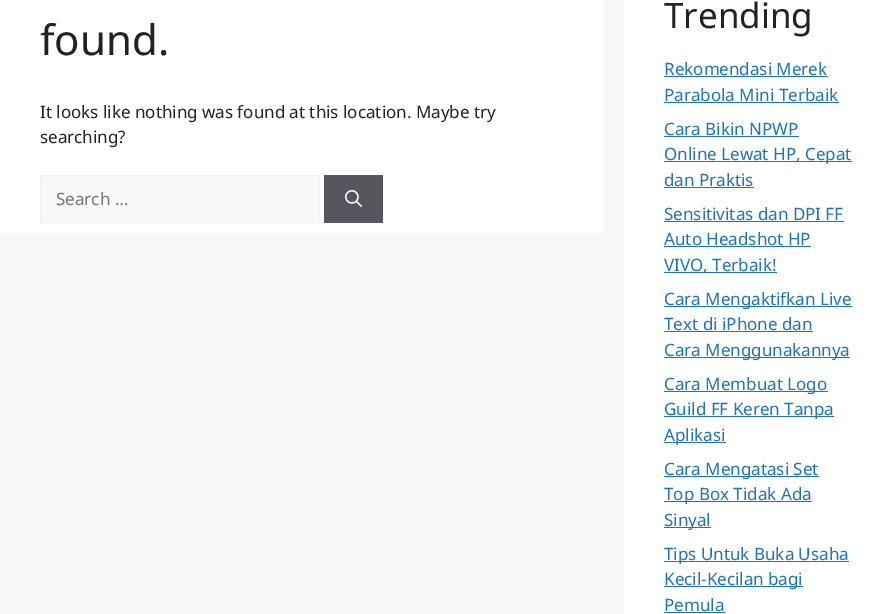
%!PS
<< /PageSize [892 614] >> setpagedevice
/picture { 5 dict begin { /h /w /y /x /name } { exch def } forall
  gsave x y translate w h scale
  w h 8 [w 0 0 h 0 0] name (r) file false 3 colorimage grestore end } def
0 614 translate 1 -1 scale
4 setmiterlimit
0.969 0.973 0.976 setrgbcolor
0 0 892 614 rectfill
1 setgray
0 0 604 233 rectfill
/NotoSans-Regular [42 0 0 -42 0 0] selectfont
0.133 setgray
40 55 moveto (found.) show
/NotoSans-Regular [17 0 0 -17 0 0] selectfont
40 118 moveto (It looks like nothing was found at this location. Maybe try) show
40 143 moveto (searching?) show
0.969 0.973 0.976 setrgbcolor
newpath 40.5 175.5 moveto 319.5 175.5 lineto 319.5 222.5 lineto 40.5 222.5 lineto closepath gsave fill grestore
0.941 setgray
stroke
0.459 setgray
56 205 moveto (Search …) show
0.333 0.333 0.369 setrgbcolor
324 175 59 48 rectfill
(img1.rgb) 345 190 17 17 picture
1 setgray
624 0 268 614 rectfill
/NotoSans-Regular [35 0 0 -35 0 0] selectfont
0.133 setgray
664 28 moveto (Trending) show
/NotoSans-Regular [17 0 0 -17 0 0] selectfont
0.118 0.451 0.745 setrgbcolor
664 75 moveto (Rekomendasi Merek) show
664 76 164 1 rectfill
664 101 moveto (Parabola Mini Terbaik) show
664 102 175 1 rectfill
664 135 moveto (Cara Bikin NPWP) show
664 136 135 1 rectfill
664 161 188 1 rectfill
664 160 moveto (Online Lewat HP, Cepat) show
664 186 moveto (dan Praktis) show
664 187 90 1 rectfill
664 220 moveto (Sensitivitas dan DPI FF) show
664 221 180 1 rectfill
664 245 moveto (Auto Headshot HP) show
664 246 147 1 rectfill
664 272 113 1 rectfill
664 271 moveto (VIVO, Terbaik!) show
664 306 188 1 rectfill
664 305 moveto (Cara Mengaktifkan Live) show
664 330 moveto (Text di iPhone dan) show
664 331 149 1 rectfill
664 357 186 1 rectfill
664 356 moveto (Cara Menggunakannya) show
664 391 164 1 rectfill
664 390 moveto (Cara Membuat Logo) show
664 416 170 1 rectfill
664 415 moveto (Guild FF Keren Tanpa) show
664 442 62 1 rectfill
664 441 moveto (Aplikasi) show
664 476 155 1 rectfill
664 475 moveto (Cara Mengatasi Set) show
664 501 148 1 rectfill
664 500 moveto (Top Box Tidak Ada) show
664 527 47 1 rectfill
664 526 moveto (Sinyal) show
664 561 185 1 rectfill
664 560 moveto (Tips Untuk Buka Usaha) show
664 586 139 1 rectfill
664 585 moveto (Kecil-Kecilan bagi) show
664 611 moveto (Pemula) show
664 612 61 1 rectfill
showpage
